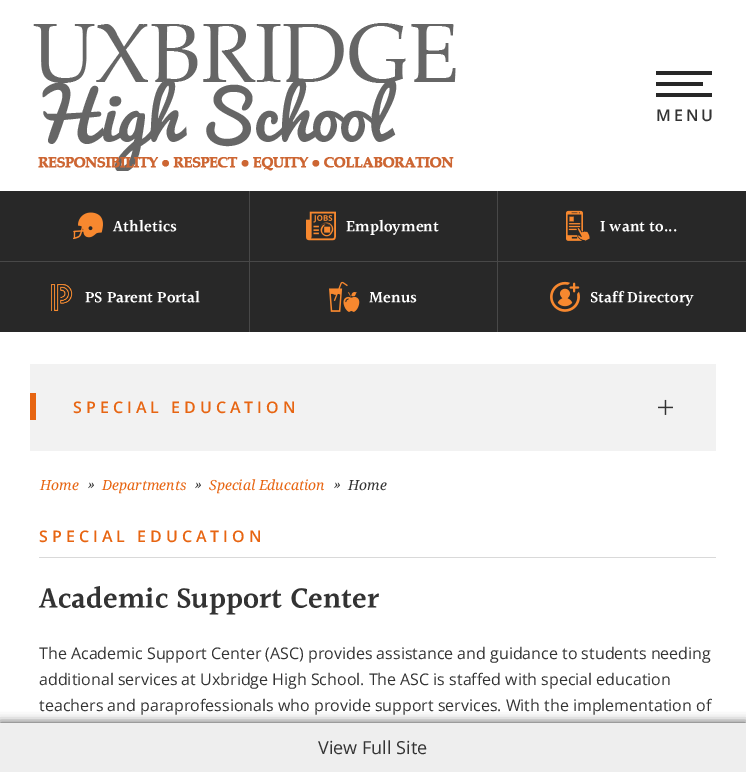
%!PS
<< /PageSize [746 772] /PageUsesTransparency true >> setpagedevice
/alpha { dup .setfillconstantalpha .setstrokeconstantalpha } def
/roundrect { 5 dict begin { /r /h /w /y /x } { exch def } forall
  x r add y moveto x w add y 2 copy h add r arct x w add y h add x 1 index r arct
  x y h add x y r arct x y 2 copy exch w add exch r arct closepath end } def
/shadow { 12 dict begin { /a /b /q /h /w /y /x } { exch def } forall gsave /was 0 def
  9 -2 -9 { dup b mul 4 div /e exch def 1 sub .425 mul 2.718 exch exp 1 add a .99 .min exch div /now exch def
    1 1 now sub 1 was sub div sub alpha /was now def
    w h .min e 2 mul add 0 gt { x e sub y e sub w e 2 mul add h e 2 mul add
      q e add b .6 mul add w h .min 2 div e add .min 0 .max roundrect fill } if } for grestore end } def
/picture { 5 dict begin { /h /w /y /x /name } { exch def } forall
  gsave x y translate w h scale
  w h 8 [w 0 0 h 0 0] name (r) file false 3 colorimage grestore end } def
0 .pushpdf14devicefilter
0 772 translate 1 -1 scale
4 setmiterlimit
1 setgray
0 0 746 772 rectfill
(img1.rgb) 33 23 423 148 picture
0.153 setgray
newpath 656 71 moveto 712 71 lineto 712 75 lineto 656 75 lineto closepath 656 82 moveto 700 82 lineto 700 86 lineto 656 86 lineto closepath 656 93 moveto 712 93 lineto 712 97 lineto 656 97 lineto closepath fill
gsave
656 71 47 25 rectclip
newpath 656 71 moveto 712 71 lineto 712 75 lineto 656 75 lineto closepath 656 82 moveto 712 82 lineto 712 86 lineto 656 86 lineto closepath 656 93 moveto 712 93 lineto 712 96 lineto 656 96 lineto closepath fill
grestore
/OpenSans-SemiBold [16 0 0 -16 0 0] selectfont
0.2 setgray
656 121 moveto 3 0 (MENU) ashow
0.157 setgray
0 191 746 141 rectfill
(img2.rgb) 73 212 30 28 picture
/Halant-SemiBold [16 0 0 -16 0 0] selectfont
1 setgray
113 232 moveto (Athletics) show
0.282 setgray
249 191 1 70 rectfill
(img3.rgb) 306 211 30 30 picture
1 setgray
346 232 moveto (Employment) show
0.282 setgray
497 191 1 70 rectfill
(img4.rgb) 566 210 24 31 picture
1 setgray
600 232 moveto (I want to...) show
0.282 setgray
0 261 746 1 rectfill
(img5.rgb) 51 283 22 29 picture
1 setgray
85 303 moveto (PS Parent Portal) show
0.282 setgray
249 262 1 70 rectfill
(img6.rgb) 329 281 31 31 picture
1 setgray
369 303 moveto (Menus) show
0.282 setgray
497 262 1 70 rectfill
(img7.rgb) 550 281 30 31 picture
1 setgray
590 303 moveto (Staff Directory) show
0.949 setgray
30 364 686 87 rectfill
0.906 0.396 0.071 setrgbcolor
30 393 6 27 rectfill
/OpenSans-SemiBold [16 0 0 -16 0 0] selectfont
73 413 moveto 4 0 (SPECIAL EDUCATION) ashow
(img8.rgb) 658 399 15 16 picture
/NotoSerif-Italic [14 0 0 -14 0 0] selectfont
40 490 moveto (Home) show
(img9.rgb) 88 482 6 7 picture
102 490 moveto (Departments) show
(img9.rgb) 195 482 6 7 picture
209 490 moveto (Special Education) show
(img9.rgb) 334 482 6 7 picture
0.2 setgray
348 490 moveto (Home) show
0.851 setgray
39 557 677 1 rectfill
/OpenSans-SemiBold [16 0 0 -16 0 0] selectfont
0.906 0.396 0.071 setrgbcolor
39 542 moveto 4 0 (SPECIAL EDUCATION) ashow
/Halant-SemiBold [30 0 0 -30 0 0] selectfont
0.2 setgray
39 609 moveto (Academic Support Center) show
/OpenSans-Regular [16 0 0 -16 0 0] selectfont
39 659 moveto (The Academic Support Center \(ASC\) provides assistance and guidance to students needing) show
39 685 moveto (additional services at Uxbridge High School. The ASC is staffed with special education) show
39 711 moveto (teachers and paraprofessionals who provide support services. With the implementation of) show
0 723 746 49 0 5 1 shadow
0.933 setgray
0 723 746 49 rectfill
/OpenSans-Regular [18 0 0 -18 0 0] selectfont
0.2 setgray
318 754 moveto (View Full Site) show
.poppdf14devicefilter showpage
